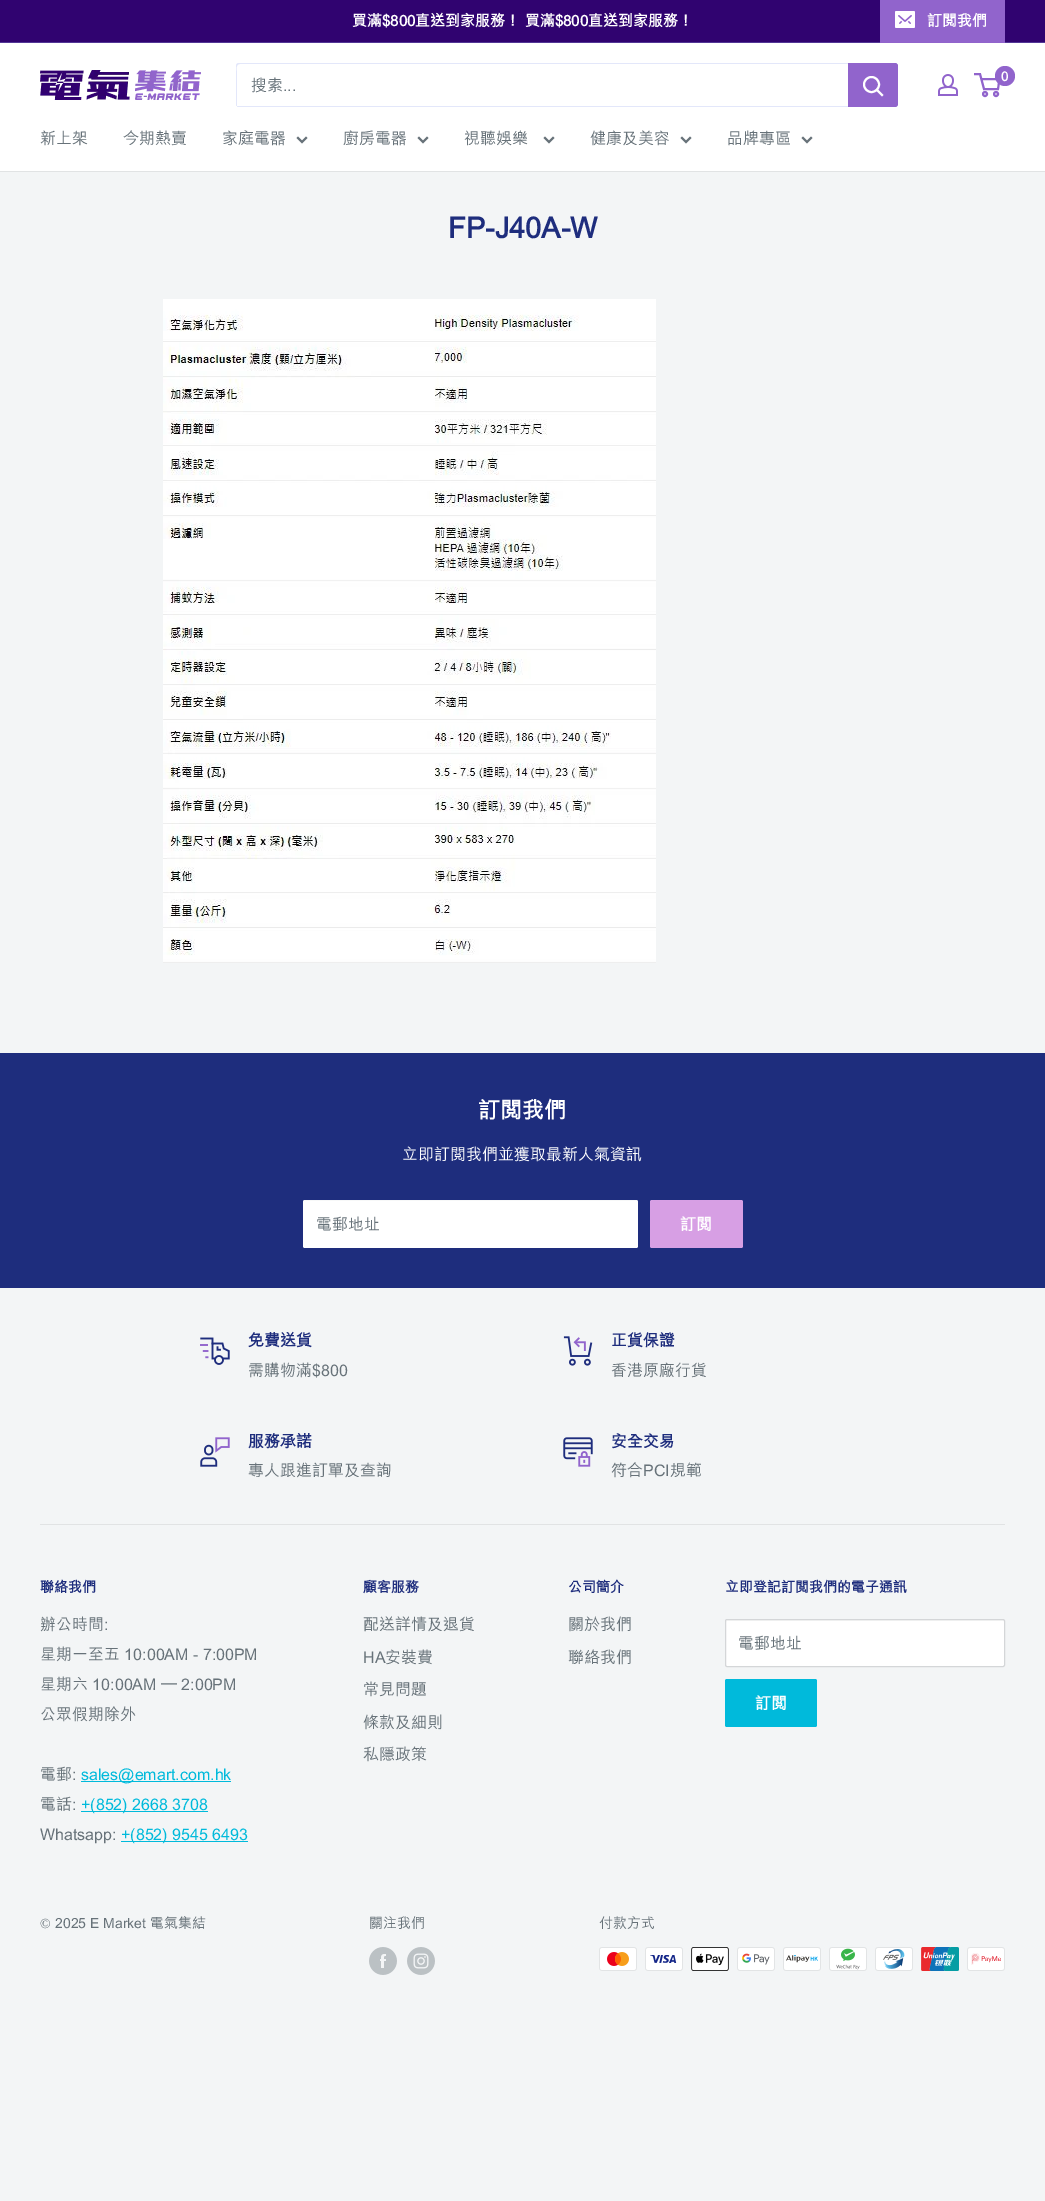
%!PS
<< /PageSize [1045 2201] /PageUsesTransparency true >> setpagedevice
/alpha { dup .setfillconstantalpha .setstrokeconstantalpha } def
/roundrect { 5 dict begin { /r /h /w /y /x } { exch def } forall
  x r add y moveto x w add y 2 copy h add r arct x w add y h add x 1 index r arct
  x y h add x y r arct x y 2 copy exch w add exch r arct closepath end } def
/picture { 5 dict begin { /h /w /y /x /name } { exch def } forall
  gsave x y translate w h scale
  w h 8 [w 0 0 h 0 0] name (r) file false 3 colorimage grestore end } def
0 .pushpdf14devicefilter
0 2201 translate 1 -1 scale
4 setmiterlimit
0.953 0.961 0.965 setrgbcolor
0 0 1045 2201 rectfill
0.188 0.012 0.439 setrgbcolor
0 0 1045 42 rectfill
0.325 0.216 0.588 setrgbcolor
0 42 1045 1 rectfill
/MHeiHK-Bold [15 0 0 -15 0 0] selectfont
1 setgray
352 26 moveto (買滿$800直送到家服務！ 買滿$800直送到家服務！) show
0.569 0.392 0.8 setrgbcolor
880 0 125 43 rectfill
(img1.rgb) 895 11 20 17 picture
1 setgray
927 26 moveto (訂閱我們) show
0 43 1045 128 rectfill
(img2.rgb) 40 70 161 30 picture
0.89 0.906 0.98 setrgbcolor
newpath 237 106 moveto 237 107 238 107 239 107 curveto 895 107 lineto 897 107 898 106 898 104 curveto 898 66 lineto 898 65 898 64 897 64 curveto 897 97 lineto 897 99 899 106 894 106 curveto closepath fill
newpath 240 64 moveto 897 64 lineto 897 63 896 63 895 63 curveto 239 63 lineto 237 63 236 64 236 66 curveto 236 104 lineto 236 105 236 106 237 106 curveto 237 73 lineto 237 71 235 64 240 64 curveto closepath fill
/MHeiHK-Medium [16 0 0 -16 0 0] selectfont
0.404 0.447 0.475 setrgbcolor
251 91 moveto (搜索...) show
0.569 0.392 0.8 setrgbcolor
newpath 848 63 moveto 895 63 lineto 896.5 63 898 64.5 898 66 curveto 898 104 lineto 898 105.5 896.5 107 895 107 curveto 848 107 lineto closepath fill
1 setgray
2 setlinewidth
2 setlinecap
newpath 882 95 moveto 877 90 lineto stroke
0 setlinecap
newpath 871.5 84.5 7.5 0 360 arc closepath stroke
(img3.rgb) 938 74 20 22 picture
0.569 0.392 0.8 setrgbcolor
newpath 985 94 2 0 360 arc closepath stroke
newpath 996 94 2 0 360 arc closepath stroke
newpath 981.5 79 moveto 999.5 79 lineto 998 89 lineto 984 89 lineto 980 74 lineto 974 74 lineto stroke
newpath 1005 76 10 0 360 arc closepath fill
/MHeiHK-Bold [13 0 0 -13 0 0] selectfont
1 setgray
1001 81 moveto (0) show
0.882 0.89 0.894 setrgbcolor
0 171 1045 1 rectfill
/MHeiHK-Medium [16 0 0 -16 0 0] selectfont
0.404 0.447 0.475 setrgbcolor
40 144 moveto (新上架) show
123 144 moveto (今期熱賣) show
222 144 moveto (家庭電器) show
2 setlinecap
newpath 306 138 moveto 302 142 lineto 298 138 lineto stroke
343 144 moveto (廚房電器) show
newpath 427 138 moveto 423 142 lineto 419 138 lineto stroke
464 144 moveto (視聽娛樂) show
newpath 553 138 moveto 549 142 lineto 545 138 lineto stroke
590 144 moveto (健康及美容) show
newpath 690 138 moveto 686 142 lineto 682 138 lineto stroke
727 144 moveto (品牌專區) show
newpath 811 138 moveto 807 142 lineto 803 138 lineto stroke
/MHeiHK-Bold [29 0 0 -29 0 0] selectfont
0.118 0.176 0.49 setrgbcolor
448 238 moveto (FP-J40A-W) show
(img4.rgb) 163 299 493 664 picture
0 1053 1045 235 rectfill
/MHeiHK-Bold [22 0 0 -22 0 0] selectfont
1 setgray
478 1118 moveto (訂閱我們) show
/MHeiHK-Medium [16 0 0 -16 0 0] selectfont
402 1160 moveto (立即訂閱我們並獲取最新人氣資訊) show
303 1200 335 48 2 roundrect fill
0.25 alpha
0.882 0.89 0.894 setrgbcolor
newpath 305 1201 moveto 636 1201 lineto 637 1201 638 1202 638 1203 curveto 638 1202 638 1200 636 1200 curveto 305 1200 lineto 303 1201 lineto 303 1203 lineto 303 1202 304 1201 305 1201 curveto closepath fill
1 alpha
0.404 0.447 0.475 setrgbcolor
316 1230 moveto (電郵地址) show
0.843 0.624 0.894 setrgbcolor
650 1200 93 48 2 roundrect fill
/MHeiHK-Bold [16 0 0 -16 0 0] selectfont
1 setgray
680 1230 moveto (訂閱) show
(img5.rgb) 200 1337 30 28 picture
0.118 0.176 0.49 setrgbcolor
248 1346 moveto (免費送貨) show
/MHeiHK-Medium [16 0 0 -16 0 0] selectfont
0.404 0.447 0.475 setrgbcolor
248 1376 moveto (需購物滿$800) show
(img6.rgb) 563 1336 30 30 picture
/MHeiHK-Bold [16 0 0 -16 0 0] selectfont
0.118 0.176 0.49 setrgbcolor
611 1346 moveto (正貨保證) show
/MHeiHK-Medium [16 0 0 -16 0 0] selectfont
0.404 0.447 0.475 setrgbcolor
611 1376 moveto (香港原廠行貨) show
(img7.rgb) 200 1437 30 30 picture
/MHeiHK-Bold [16 0 0 -16 0 0] selectfont
0.118 0.176 0.49 setrgbcolor
248 1447 moveto (服務承諾) show
/MHeiHK-Medium [16 0 0 -16 0 0] selectfont
0.404 0.447 0.475 setrgbcolor
248 1476 moveto (專人跟進訂單及查詢) show
(img8.rgb) 563 1437 30 30 picture
/MHeiHK-Bold [16 0 0 -16 0 0] selectfont
0.118 0.176 0.49 setrgbcolor
611 1447 moveto (安全交易) show
/MHeiHK-Medium [16 0 0 -16 0 0] selectfont
0.404 0.447 0.475 setrgbcolor
611 1476 moveto (符合PCI規範) show
0.882 0.89 0.894 setrgbcolor
40 1524 965 1 rectfill
/MHeiHK-Bold [14 0 0 -14 0 0] selectfont
0.118 0.176 0.49 setrgbcolor
40 1592 moveto (聯絡我們) show
/MHeiHK-Medium [16 0 0 -16 0 0] selectfont
0.404 0.447 0.475 setrgbcolor
40 1630 moveto (辦公時間:) show
40 1660 moveto (星期一至五 10:00AM - 7:00PM) show
40 1690 moveto (星期六 10:00AM – 2:00PM) show
40 1720 moveto (公眾假期除外) show
40 1780 moveto (電郵:) show
0 0.729 0.859 setrgbcolor
81 1781 150 1 rectfill
81 1780 moveto (sales@emart.com.hk) show
0.404 0.447 0.475 setrgbcolor
40 1810 moveto (電話:) show
0 0.729 0.859 setrgbcolor
81 1811 127 1 rectfill
81 1810 moveto (+\(852\) 2668 3708) show
0.404 0.447 0.475 setrgbcolor
40 1840 moveto (Whatsapp:) show
0 0.729 0.859 setrgbcolor
121 1841 127 1 rectfill
121 1840 moveto (+\(852\) 9545 6493) show
/MHeiHK-Bold [14 0 0 -14 0 0] selectfont
0.118 0.176 0.49 setrgbcolor
363 1592 moveto (顧客服務) show
/MHeiHK-Medium [16 0 0 -16 0 0] selectfont
0.404 0.447 0.475 setrgbcolor
363 1630 moveto (配送詳情及退貨) show
363 1663 moveto (HA安裝費) show
363 1695 moveto (常見問題) show
363 1728 moveto (條款及細則) show
363 1760 moveto (私隱政策) show
/MHeiHK-Bold [14 0 0 -14 0 0] selectfont
0.118 0.176 0.49 setrgbcolor
568 1592 moveto (公司簡介) show
/MHeiHK-Medium [16 0 0 -16 0 0] selectfont
0.404 0.447 0.475 setrgbcolor
568 1630 moveto (關於我們) show
568 1663 moveto (聯絡我們) show
/MHeiHK-Bold [14 0 0 -14 0 0] selectfont
0.118 0.176 0.49 setrgbcolor
725 1592 moveto (立即登記訂閱我們的電子通訊) show
1 setgray
725 1619 280 48 2 roundrect fill
0.973 setgray
newpath 727 1621 moveto 1003 1621 lineto 1004 1621 1004 1621 1004 1622 curveto 1004 1621 1004 1620 1003 1620 curveto 727 1620 lineto 726 1620 lineto 726 1622 lineto 726 1621 726 1621 727 1621 curveto closepath fill
0.831 0.839 0.847 setrgbcolor
1 setlinewidth
0 setlinecap
725.5 1619.5 279 47 1.5 roundrect stroke
/MHeiHK-Medium [16 0 0 -16 0 0] selectfont
0.404 0.447 0.475 setrgbcolor
738 1649 moveto (電郵地址) show
0 0.729 0.859 setrgbcolor
725 1679 92 48 2 roundrect fill
/MHeiHK-Bold [16 0 0 -16 0 0] selectfont
1 setgray
755 1709 moveto (訂閱) show
/LiberationSerif-Regular [14 0 0 -14 0 0] selectfont
0.404 0.447 0.475 setrgbcolor
40 1928 moveto (©) show
/MHeiHK-Medium [14 0 0 -14 0 0] selectfont
55 1928 moveto (2025 E Market 電氣集結) show
369 1928 moveto (關注我們) show
(img9.rgb) 369 1947 28 28 picture
(img10.rgb) 407 1947 28 28 picture
599 1928 moveto (付款方式) show
(img11.rgb) 599 1947 38 24 picture
(img12.rgb) 645 1947 38 24 picture
(img13.rgb) 691 1947 38 24 picture
(img14.rgb) 737 1947 38 24 picture
(img15.rgb) 783 1947 38 24 picture
(img16.rgb) 829 1947 38 24 picture
(img17.rgb) 875 1947 38 24 picture
(img18.rgb) 921 1947 38 24 picture
(img19.rgb) 967 1947 38 24 picture
.poppdf14devicefilter showpage
